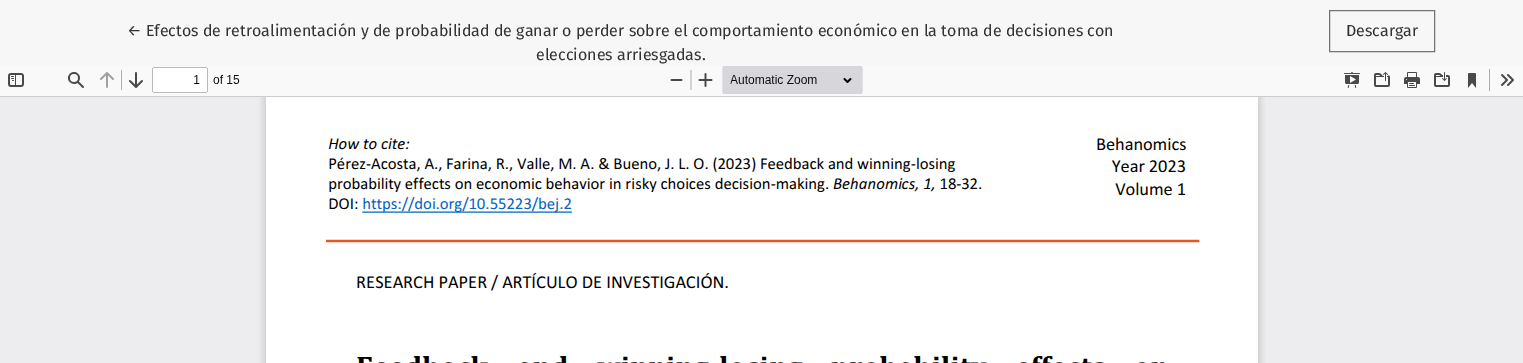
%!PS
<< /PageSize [1523 363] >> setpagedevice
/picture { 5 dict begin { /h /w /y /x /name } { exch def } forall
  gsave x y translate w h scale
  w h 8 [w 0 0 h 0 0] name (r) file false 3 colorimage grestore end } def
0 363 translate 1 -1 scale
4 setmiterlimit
0.969 setgray
0 0 1523 363 rectfill
/FiraSans-Regular [16 0 0 -16 0 0] selectfont
0.2 setgray
127 36 moveto (← Efectos de retroalimentación y de probabilidad de ganar o perder sobre el comportamiento económico en la toma de decisiones con) show
536 60 moveto (elecciones arriesgadas.) show
0.459 setgray
1329.5 10.5 105 41 rectstroke
0.2 setgray
1346 36 moveto (Descargar) show
(img1.rgb) 0 66 1523 297 picture
showpage
